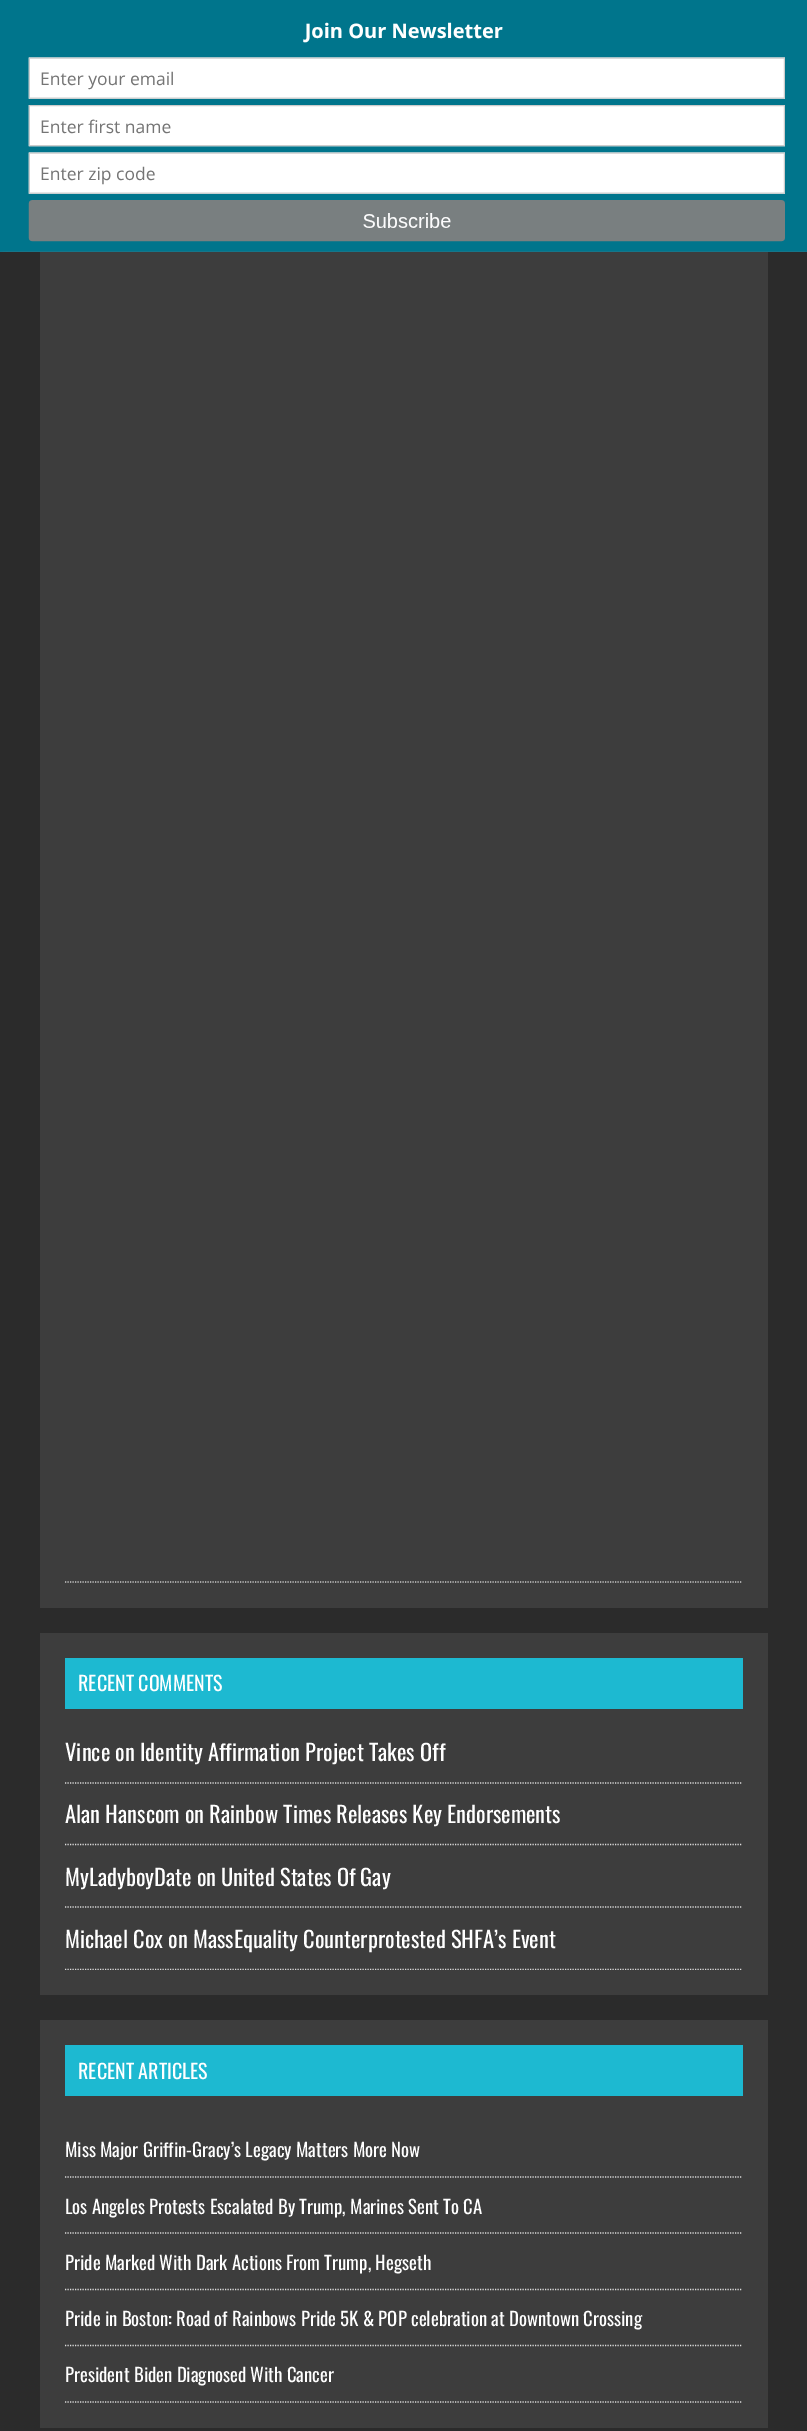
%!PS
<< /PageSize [807 2431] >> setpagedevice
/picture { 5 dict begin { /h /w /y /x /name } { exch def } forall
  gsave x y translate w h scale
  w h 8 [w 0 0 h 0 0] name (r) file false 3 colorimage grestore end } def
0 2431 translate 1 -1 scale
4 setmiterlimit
0.169 setgray
0 0 807 2431 rectfill
(img1.rgb) 0 0 807 252 picture
0.239 setgray
40 252 728 1356 rectfill
0.804 setgray
1.2 setlinewidth
[1.25 1.25] 0 setdash
newpath 65 1582 moveto 742.5 1582 lineto stroke
0.239 setgray
40 1633 728 362 rectfill
0.114 0.725 0.82 setrgbcolor
65 1658 678 51 rectfill
/Oswald-Regular [20 0 0 -20 0 0] selectfont
1 setgray
78 1691 moveto (RECENT COMMENTS) show
0.863 setgray
newpath 65 1783 moveto 742.5 1783 lineto stroke
/Oswald-Regular [22.5 0 0 -22.5 0 0] selectfont
1 setgray
65 1761 moveto (Vince on Identity Affirmation Project Takes Off) show
0.863 setgray
newpath 65 1844.5 moveto 742.5 1844.5 lineto stroke
1 setgray
65 1823 moveto (Alan Hanscom on Rainbow Times Releases Key Endorsements) show
0.863 setgray
newpath 65 1907 moveto 742.5 1907 lineto stroke
1 setgray
65 1886 moveto (MyLadyboyDate on United States Of Gay) show
gsave
65 1658 678 312 rectclip
0.863 setgray
newpath 65 1969.5 moveto 742.5 1969.5 lineto stroke
grestore
65 1948 moveto (Michael Cox on MassEquality Counterprotested SHFA’s Event) show
0.239 setgray
40 2020 728 408 rectfill
0.114 0.725 0.82 setrgbcolor
65 2045 678 51 rectfill
/Oswald-Regular [20 0 0 -20 0 0] selectfont
1 setgray
78 2079 moveto (RECENT ARTICLES) show
0.863 setgray
newpath 65 2177 moveto 742.5 2177 lineto stroke
/Oswald-Regular [18.75 0 0 -18.75 0 0] selectfont
1 setgray
65 2157 moveto (Miss Major Griffin-Gracy’s Legacy Matters More Now) show
0.863 setgray
newpath 65 2233 moveto 742.5 2233 lineto stroke
1 setgray
65 2214 moveto (Los Angeles Protests Escalated By Trump, Marines Sent To CA) show
0.863 setgray
newpath 65 2289.5 moveto 742.5 2289.5 lineto stroke
1 setgray
65 2270 moveto (Pride Marked With Dark Actions From Trump, Hegseth) show
0.863 setgray
newpath 65 2345.5 moveto 742.5 2345.5 lineto stroke
1 setgray
65 2326 moveto (Pride in Boston: Road of Rainbows Pride 5K & POP celebration at Downtown Crossing) show
0.863 setgray
newpath 65 2402 moveto 742.5 2402 lineto stroke
1 setgray
65 2382 moveto (President Biden Diagnosed With Cancer) show
showpage
